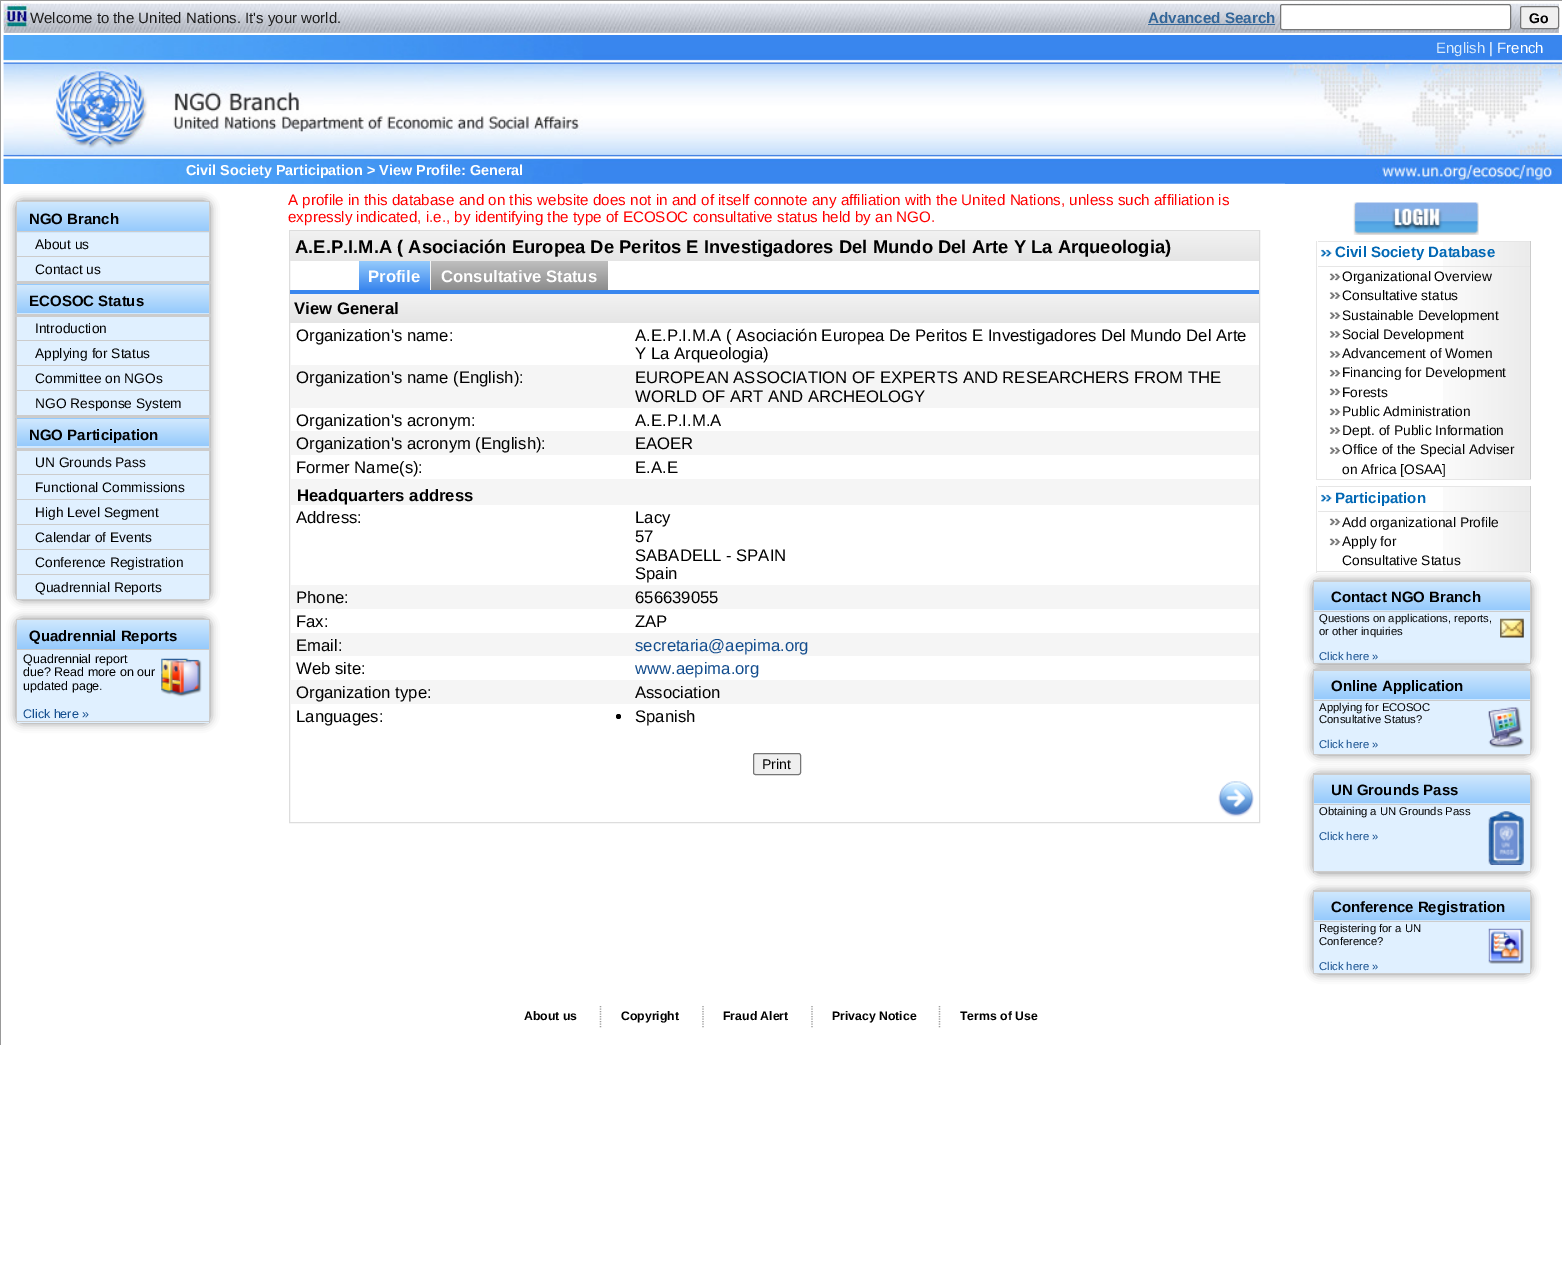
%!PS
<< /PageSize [1562 1279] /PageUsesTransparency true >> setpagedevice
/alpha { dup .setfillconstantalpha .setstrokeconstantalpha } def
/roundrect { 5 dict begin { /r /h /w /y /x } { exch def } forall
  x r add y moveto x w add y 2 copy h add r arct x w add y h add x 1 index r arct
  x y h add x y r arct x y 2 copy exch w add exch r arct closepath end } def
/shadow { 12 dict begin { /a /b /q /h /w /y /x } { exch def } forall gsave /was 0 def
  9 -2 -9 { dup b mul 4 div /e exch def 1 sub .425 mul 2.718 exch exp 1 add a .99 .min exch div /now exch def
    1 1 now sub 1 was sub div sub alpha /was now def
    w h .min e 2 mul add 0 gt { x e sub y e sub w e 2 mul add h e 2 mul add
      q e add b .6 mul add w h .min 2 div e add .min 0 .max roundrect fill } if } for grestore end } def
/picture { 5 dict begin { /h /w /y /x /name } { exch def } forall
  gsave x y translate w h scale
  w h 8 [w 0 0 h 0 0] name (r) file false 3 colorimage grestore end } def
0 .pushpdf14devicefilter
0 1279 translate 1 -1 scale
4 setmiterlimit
1 setgray
0 0 1562 1279 rectfill
0.6 setgray
0 0 1562 1 rectfill
0 0 1 1045 rectfill
0.761 0.776 0.812 setrgbcolor
4 4 1555 29 rectfill
(img1.rgb) 3 3 1556 30 picture
(img2.rgb) 3 3 27 24 picture
/LiberationSans-Regular [15 0 0 -15 0 0] selectfont
0.118 setgray
30 23 moveto (Welcome to the United Nations. It's your world.) show
/LiberationSans-Bold [15.2 0 0 -15.2 0 0] selectfont
0.2 0.4 0.6 setrgbcolor
1148 23 moveto (Advanced Search) show
1148 24 127 1 rectfill
1 setgray
1280.5 4.5 230 25 2 roundrect gsave fill grestore
0.463 setgray
stroke
0.937 setgray
1520.5 6.5 38 22 2 roundrect gsave fill grestore
0.463 setgray
stroke
/LiberationSans-Bold [14 0 0 -14 0 0] selectfont
0 setgray
1529 23 moveto (Go) show
(img3.rgb) 3 35 1559 149 picture
(img4.rgb) 3 35 580 149 picture
(img5.rgb) 1285 55 277 129 picture
/LiberationSans-Regular [15 0 0 -15 0 0] selectfont
0.851 0.918 0.984 setrgbcolor
1436 53 moveto (English) show
1 setgray
1489 53 moveto (| French) show
/LiberationSans-Bold [14.4 0 0 -14.4 0 0] selectfont
186 175 moveto (Civil Society Participation > View Profile: General) show
0.533 setgray
16 201 194 399 6 4.5 1 shadow
gsave newpath 22 201 moveto 204 201 lineto 207.5 201 210 203.5 210 207 curveto 210 231 lineto 16 231 lineto 16 207 lineto 16 203.5 18.5 201 22 201 curveto closepath clip newpath
<< /ShadingType 2 /ColorSpace /DeviceRGB /Coords [113 201 113 231] /Extend [true true] /Function << /FunctionType 2 /Domain [0 1] /C0 [0.824 0.914 0.996] /C1 [0.584 0.792 0.988] /N 1 >> >> shfill grestore
0.8 setgray
16 201 194 1 rectfill
gsave newpath 16 232 moveto 210 232 lineto 210 233 lineto 16 233 lineto closepath clip newpath
<< /ShadingType 2 /ColorSpace /DeviceRGB /Coords [113 231 113 261] /Extend [true true] /Function << /FunctionType 2 /Domain [0 1] /C0 [0.824 0.914 0.996] /C1 [0.584 0.792 0.988] /N 1 >> >> shfill grestore
gsave newpath 16 284 moveto 210 284 lineto 210 285 lineto 16 285 lineto closepath clip newpath
<< /ShadingType 2 /ColorSpace /DeviceRGB /Coords [113 258 113 285] /Extend [true true] /Function << /FunctionType 2 /Domain [0 1] /C0 [0.824 0.914 0.996] /C1 [0.584 0.792 0.988] /N 1 >> >> shfill grestore
gsave newpath 16 313 moveto 210 313 lineto 210 314 lineto 16 314 lineto closepath clip newpath
<< /ShadingType 2 /ColorSpace /DeviceRGB /Coords [113 313 113 340] /Extend [true true] /Function << /FunctionType 2 /Domain [0 1] /C0 [0.824 0.914 0.996] /C1 [0.584 0.792 0.988] /N 1 >> >> shfill grestore
gsave newpath 16 418 moveto 210 418 lineto 210 419 lineto 16 419 lineto closepath clip newpath
<< /ShadingType 2 /ColorSpace /DeviceRGB /Coords [113 391 113 419] /Extend [true true] /Function << /FunctionType 2 /Domain [0 1] /C0 [0.824 0.914 0.996] /C1 [0.584 0.792 0.988] /N 1 >> >> shfill grestore
gsave newpath 16 446 moveto 210 446 lineto 210 448 lineto 16 448 lineto closepath clip newpath
<< /ShadingType 2 /ColorSpace /DeviceRGB /Coords [113 446 113 474] /Extend [true true] /Function << /FunctionType 2 /Domain [0 1] /C0 [0.824 0.914 0.996] /C1 [0.584 0.792 0.988] /N 1 >> >> shfill grestore
209 201 1 399 rectfill
16 599 194 1 rectfill
16 201 1 399 rectfill
/LiberationSans-Bold [15 0 0 -15 0 0] selectfont
0 setgray
29 224 moveto (NGO Branch) show
0.8 setgray
16 231 194 1 rectfill
0.878 0.941 1 setrgbcolor
17 233 192 48 rectfill
/LiberationSans-Regular [13.75 0 0 -13.75 0 0] selectfont
0 setgray
35 249 moveto (About us) show
0.8 setgray
16 256 194 1 rectfill
0 setgray
35 274 moveto (Contact us) show
gsave newpath 17 285 moveto 209 285 lineto 209 313 lineto 17 313 lineto closepath clip newpath
<< /ShadingType 2 /ColorSpace /DeviceRGB /Coords [113 285 113 313] /Extend [true true] /Function << /FunctionType 2 /Domain [0 1] /C0 [0.824 0.914 0.996] /C1 [0.584 0.792 0.988] /N 1 >> >> shfill grestore
0.8 setgray
15 281 196 3 rectfill
15 314 196 3 rectfill
/LiberationSans-Bold [15 0 0 -15 0 0] selectfont
0 setgray
29 306 moveto (ECOSOC Status) show
0.878 0.941 1 setrgbcolor
17 317 192 23 rectfill
/LiberationSans-Regular [13.75 0 0 -13.75 0 0] selectfont
0 setgray
35 333 moveto (Introduction) show
0.8 setgray
16 340 194 1 rectfill
0.878 0.941 1 setrgbcolor
17 341 192 24 rectfill
0 setgray
35 358 moveto (Applying for Status) show
0.8 setgray
16 365 194 1 rectfill
0.878 0.941 1 setrgbcolor
17 366 192 24 rectfill
0 setgray
35 383 moveto (Committee on NGOs) show
0.8 setgray
16 390 194 1 rectfill
0.878 0.941 1 setrgbcolor
17 391 192 24 rectfill
0 setgray
35 408 moveto (NGO Response System) show
gsave newpath 17 419 moveto 209 419 lineto 209 446 lineto 17 446 lineto closepath clip newpath
<< /ShadingType 2 /ColorSpace /DeviceRGB /Coords [113 419 113 446] /Extend [true true] /Function << /FunctionType 2 /Domain [0 1] /C0 [0.824 0.914 0.996] /C1 [0.584 0.792 0.988] /N 1 >> >> shfill grestore
0.8 setgray
15 415 196 3 rectfill
15 448 196 3 rectfill
/LiberationSans-Bold [15 0 0 -15 0 0] selectfont
0 setgray
29 440 moveto (NGO Participation) show
0.878 0.941 1 setrgbcolor
17 451 192 23 rectfill
/LiberationSans-Regular [13.75 0 0 -13.75 0 0] selectfont
0 setgray
35 467 moveto (UN Grounds Pass) show
0.8 setgray
16 474 194 1 rectfill
0.878 0.941 1 setrgbcolor
17 475 192 24 rectfill
0 setgray
35 492 moveto (Functional Commissions) show
0.8 setgray
16 499 194 1 rectfill
0.878 0.941 1 setrgbcolor
17 500 192 24 rectfill
0 setgray
35 517 moveto (High Level Segment) show
0.8 setgray
16 524 194 1 rectfill
0.878 0.941 1 setrgbcolor
17 525 192 24 rectfill
0 setgray
35 542 moveto (Calendar of Events) show
0.8 setgray
16 549 194 1 rectfill
0.878 0.941 1 setrgbcolor
17 550 192 24 rectfill
0 setgray
35 567 moveto (Conference Registration) show
0.8 setgray
16 574 194 1 rectfill
0.878 0.941 1 setrgbcolor
17 575 192 24 rectfill
0 setgray
35 592 moveto (Quadrennial Reports) show
0.533 setgray
16 619 194 104 6 4.5 1 shadow
gsave newpath 22 619 moveto 204 619 lineto 207.5 619 210 621.5 210 625 curveto 210 649 lineto 16 649 lineto 16 625 lineto 16 621.5 18.5 619 22 619 curveto closepath clip newpath
<< /ShadingType 2 /ColorSpace /DeviceRGB /Coords [113 619 113 649] /Extend [true true] /Function << /FunctionType 2 /Domain [0 1] /C0 [0.824 0.914 0.996] /C1 [0.584 0.792 0.988] /N 1 >> >> shfill grestore
0.8 setgray
16 619 194 1 rectfill
209 619 1 104 rectfill
0.878 0.941 1 setrgbcolor
17 650 192 73 rectfill
0.8 setgray
16 721 194 1 rectfill
16 619 1 104 rectfill
/LiberationSans-Bold [15 0 0 -15 0 0] selectfont
0 setgray
29 641 moveto (Quadrennial Reports) show
0.8 setgray
16 649 194 1 rectfill
/LiberationSans-Regular [12.5 0 0 -12.5 0 0] selectfont
0 setgray
23 663 moveto (Quadrennial report) show
(img6.rgb) 161 658 41 39 picture
23 676 moveto (due? Read more on our) show
23 690 moveto (updated page.) show
0.071 0.298 0.553 setrgbcolor
23 718 moveto (Click here ») show
/LiberationSans-Regular [15.2 0 0 -15.2 0 0] selectfont
1 0 0 setrgbcolor
288 205 moveto (A profile in this database and on this website does not in and of itself connote any affiliation with the United Nations, unless such affiliation is) show
288 222 moveto (expressly indicated, i.e., by identifying the type of ECOSOC consultative status held by an NGO.) show
0.867 setgray
289.5 230.5 970 592 rectstroke
gsave newpath 290 231 moveto 1259 231 lineto 1259 261 lineto 290 261 lineto closepath clip newpath
<< /ShadingType 2 /ColorSpace /DeviceRGB /Coords [774 231 774 261] /Extend [true true] /Function << /FunctionType 2 /Domain [0 1] /C0 [0.949 0.949 0.949] /C1 [0.898 0.898 0.898] /N 1 >> >> shfill grestore
/LiberationSans-Bold [18.4 0 0 -18.4 0 0] selectfont
0 setgray
295 253 moveto (A.E.P.I.M.A \( Asociación Europea De Peritos E Investigadores Del Mundo Del Arte Y La Arqueologia\)) show
0.224 0.525 0.933 setrgbcolor
290 290 969 4 rectfill
gsave newpath 359 261 moveto 430 261 lineto 430 290 lineto 359 290 lineto closepath clip newpath
<< /ShadingType 2 /ColorSpace /DeviceRGB /Coords [394 261 394 290] /Extend [true true] /Function << /FunctionType 2 /Domain [0 1] /C0 [0.588 0.796 0.988] /C1 [0.224 0.525 0.933] /N 1 >> >> shfill grestore
0.961 setgray
430 261 1 29 rectfill
/LiberationSans-Bold [16.7 0 0 -16.7 0 0] selectfont
1 setgray
368 282 moveto (Profile) show
gsave newpath 431 261 moveto 608 261 lineto 608 290 lineto 431 290 lineto closepath clip newpath
<< /ShadingType 2 /ColorSpace /DeviceRGB /Coords [519 261 519 290] /Extend [true true] /Function << /FunctionType 2 /Domain [0 1] /C0 [0.749 0.749 0.749] /C1 [0.549 0.549 0.549] /N 1 >> >> shfill grestore
441 282 moveto (Consultative Status) show
gsave newpath 290 294 moveto 1259 294 lineto 1259 323 lineto 290 323 lineto closepath clip newpath
<< /ShadingType 2 /ColorSpace /DeviceRGB /Coords [774 294 774 323] /Extend [true true] /Function << /FunctionType 2 /Domain [0 1] /C0 [0.949 0.949 0.949] /C1 [0.898 0.898 0.898] /N 1 >> >> shfill grestore
0 setgray
294 314 moveto (View General) show
/LiberationSans-Regular [16.7 0 0 -16.7 0 0] selectfont
296 341 moveto (Organization's name:) show
635 341 moveto (A.E.P.I.M.A \( Asociación Europea De Peritos E Investigadores Del Mundo Del Arte) show
635 359 moveto (Y La Arqueologia\)) show
0.961 setgray
290 365 969 43 rectfill
0 setgray
296 383 moveto (Organization's name \(English\):) show
635 383 moveto (EUROPEAN ASSOCIATION OF EXPERTS AND RESEARCHERS FROM THE) show
635 402 moveto (WORLD OF ART AND ARCHEOLOGY) show
296 426 moveto (Organization's acronym:) show
635 426 moveto (A.E.P.I.M.A) show
0.961 setgray
290 431 969 24 rectfill
0 setgray
296 449 moveto (Organization's acronym \(English\):) show
635 449 moveto (EAOER) show
296 473 moveto (Former Name\(s\):) show
635 473 moveto (E.A.E) show
0.961 setgray
290 479 969 26 rectfill
/LiberationSans-Bold [16.7 0 0 -16.7 0 0] selectfont
0 setgray
297 501 moveto (Headquarters address) show
/LiberationSans-Regular [16.7 0 0 -16.7 0 0] selectfont
296 523 moveto (Address:) show
635 523 moveto (Lacy) show
635 542 moveto (57) show
635 561 moveto (SABADELL - SPAIN) show
635 579 moveto (Spain) show
0.961 setgray
290 585 969 24 rectfill
0 setgray
296 603 moveto (Phone:) show
635 603 moveto (656639055) show
296 627 moveto (Fax:) show
635 627 moveto (ZAP) show
0.961 setgray
290 633 969 23 rectfill
0 setgray
296 651 moveto (Email:) show
0.071 0.298 0.553 setrgbcolor
635 651 moveto (secretaria@aepima.org) show
0 setgray
296 674 moveto (Web site:) show
0.071 0.298 0.553 setrgbcolor
635 674 moveto (www.aepima.org) show
0.961 setgray
290 680 969 24 rectfill
0 setgray
296 698 moveto (Organization type:) show
635 698 moveto (Association) show
296 722 moveto (Languages:) show
newpath 618.5 716.5 2.5 0 360 arc closepath fill
635 722 moveto (Spanish) show
0.937 setgray
753.5 753.5 47 21 2 roundrect gsave fill grestore
0.463 setgray
stroke
/LiberationSans-Regular [14 0 0 -14 0 0] selectfont
0 setgray
762 769 moveto (Print) show
(img7.rgb) 1218 781 36 36 picture
(img8.rgb) 1353 202 126 33 picture
(img9.rgb) 1443 242 87 237 picture
0.8 setgray
1530 241 1 239 rectfill
0.902 setgray
1316 479 215 1 rectfill
1316 241 1 239 rectfill
1318 241 212 1 rectfill
1318 266 212 1 rectfill
(img10.rgb) 1321 249 11 8 picture
/LiberationSans-Bold [15 0 0 -15 0 0] selectfont
0 0.404 0.706 setrgbcolor
1335 257 moveto (Civil Society Database) show
(img11.rgb) 1329 273 12 8 picture
/LiberationSans-Regular [13.75 0 0 -13.75 0 0] selectfont
0 setgray
1342 281 moveto (Organizational Overview) show
(img12.rgb) 1329 292 12 7 picture
1342 300 moveto (Consultative status) show
(img13.rgb) 1329 312 12 7 picture
1342 320 moveto (Sustainable Development) show
(img14.rgb) 1329 331 12 7 picture
1342 339 moveto (Social Development) show
(img14.rgb) 1329 351 12 7 picture
1342 358 moveto (Advancement of Women) show
(img15.rgb) 1329 369 12 8 picture
1342 377 moveto (Financing for Development) show
(img11.rgb) 1329 388 12 8 picture
1342 397 moveto (Forests) show
(img11.rgb) 1329 408 12 8 picture
1342 416 moveto (Public Administration) show
(img13.rgb) 1329 427 12 7 picture
1342 435 moveto (Dept. of Public Information) show
(img13.rgb) 1329 447 12 7 picture
1342 454 moveto (Office of the Special Adviser) show
1342 474 moveto (on Africa [OSAA]) show
0.533 setgray
1313 581 218 83 6 4.5 1 shadow
(img16.rgb) 1443 487 87 86 picture
0.8 setgray
1530 486 1 87 rectfill
0.902 setgray
1316 571 215 1 rectfill
1316 486 1 87 rectfill
1318 486 212 1 rectfill
1318 511 212 1 rectfill
(img10.rgb) 1321 494 11 8 picture
/LiberationSans-Bold [15 0 0 -15 0 0] selectfont
0 0.404 0.706 setrgbcolor
1335 503 moveto (Participation) show
(img11.rgb) 1329 518 12 8 picture
/LiberationSans-Regular [13.75 0 0 -13.75 0 0] selectfont
0 setgray
1342 527 moveto (Add organizational Profile) show
(img11.rgb) 1329 538 12 8 picture
1342 546 moveto (Apply for) show
1342 565 moveto (Consultative Status) show
gsave newpath 1319 581 moveto 1525 581 lineto 1528.5 581 1531 583.5 1531 587 curveto 1531 610 lineto 1313 610 lineto 1313 587 lineto 1313 583.5 1315.5 581 1319 581 curveto closepath clip newpath
<< /ShadingType 2 /ColorSpace /DeviceRGB /Coords [1422 581 1422 610] /Extend [true true] /Function << /FunctionType 2 /Domain [0 1] /C0 [0.824 0.914 0.996] /C1 [0.584 0.792 0.988] /N 1 >> >> shfill grestore
0.8 setgray
1313 580 218 2 rectfill
gsave newpath 1313 610 moveto 1531 610 lineto 1531 611 lineto 1313 611 lineto closepath clip newpath
<< /ShadingType 2 /ColorSpace /DeviceRGB /Coords [1422 610 1422 639] /Extend [true true] /Function << /FunctionType 2 /Domain [0 1] /C0 [0.824 0.914 0.996] /C1 [0.584 0.792 0.988] /N 1 >> >> shfill grestore
1530 581 1 83 rectfill
1313 663 218 1 rectfill
1313 581 1 83 rectfill
/LiberationSans-Bold [15 0 0 -15 0 0] selectfont
0 setgray
1331 602 moveto (Contact NGO Branch) show
0.8 setgray
1313 611 218 1 rectfill
0.878 0.941 1 setrgbcolor
1314 612 216 51 rectfill
/LiberationSans-Regular [11.25 0 0 -11.25 0 0] selectfont
0 setgray
1319 622 moveto (Questions on applications, reports,) show
(img17.rgb) 1500 618 24 20 picture
1319 635 moveto (or other inquiries) show
0.533 setgray
1313 670 218 85 6 4.5 1 shadow
0.071 0.298 0.553 setrgbcolor
1319 660 moveto (Click here ») show
gsave newpath 1319 670 moveto 1525 670 lineto 1528.5 670 1531 672.5 1531 676 curveto 1531 699 lineto 1313 699 lineto 1313 676 lineto 1313 672.5 1315.5 670 1319 670 curveto closepath clip newpath
<< /ShadingType 2 /ColorSpace /DeviceRGB /Coords [1422 670 1422 699] /Extend [true true] /Function << /FunctionType 2 /Domain [0 1] /C0 [0.824 0.914 0.996] /C1 [0.584 0.792 0.988] /N 1 >> >> shfill grestore
0.8 setgray
1313 669 218 2 rectfill
gsave newpath 1313 699 moveto 1531 699 lineto 1531 700 lineto 1313 700 lineto closepath clip newpath
<< /ShadingType 2 /ColorSpace /DeviceRGB /Coords [1422 699 1422 728] /Extend [true true] /Function << /FunctionType 2 /Domain [0 1] /C0 [0.824 0.914 0.996] /C1 [0.584 0.792 0.988] /N 1 >> >> shfill grestore
1530 670 1 85 rectfill
1313 754 218 1 rectfill
1313 670 1 85 rectfill
/LiberationSans-Bold [15 0 0 -15 0 0] selectfont
0 setgray
1331 691 moveto (Online Application) show
0.8 setgray
1313 700 218 1 rectfill
0.878 0.941 1 setrgbcolor
1314 701 216 53 rectfill
/LiberationSans-Regular [11.25 0 0 -11.25 0 0] selectfont
0 setgray
1319 711 moveto (Applying for ECOSOC) show
(img18.rgb) 1488 707 36 41 picture
1319 723 moveto (Consultative Status?) show
0.071 0.298 0.553 setrgbcolor
1319 748 moveto (Click here ») show
0.533 setgray
1313 774 218 99 6 4.5 1 shadow
gsave newpath 1319 774 moveto 1525 774 lineto 1528.5 774 1531 776.5 1531 780 curveto 1531 803 lineto 1313 803 lineto 1313 780 lineto 1313 776.5 1315.5 774 1319 774 curveto closepath clip newpath
<< /ShadingType 2 /ColorSpace /DeviceRGB /Coords [1422 774 1422 803] /Extend [true true] /Function << /FunctionType 2 /Domain [0 1] /C0 [0.824 0.914 0.996] /C1 [0.584 0.792 0.988] /N 1 >> >> shfill grestore
0.8 setgray
1313 773 218 2 rectfill
gsave newpath 1313 803 moveto 1531 803 lineto 1531 804 lineto 1313 804 lineto closepath clip newpath
<< /ShadingType 2 /ColorSpace /DeviceRGB /Coords [1422 803 1422 831] /Extend [true true] /Function << /FunctionType 2 /Domain [0 1] /C0 [0.824 0.914 0.996] /C1 [0.584 0.792 0.988] /N 1 >> >> shfill grestore
1530 774 1 99 rectfill
1313 871 218 1 rectfill
1313 774 1 99 rectfill
/LiberationSans-Bold [15 0 0 -15 0 0] selectfont
0 setgray
1331 795 moveto (UN Grounds Pass) show
0.8 setgray
1313 804 218 1 rectfill
0.878 0.941 1 setrgbcolor
1314 805 216 66 rectfill
/LiberationSans-Regular [11.25 0 0 -11.25 0 0] selectfont
0 setgray
1319 815 moveto (Obtaining a UN Grounds Pass) show
(img19.rgb) 1488 811 36 54 picture
0.071 0.298 0.553 setrgbcolor
1319 840 moveto (Click here ») show
0.533 setgray
1313 891 218 83 6 4.5 1 shadow
gsave newpath 1319 891 moveto 1525 891 lineto 1528.5 891 1531 893.5 1531 897 curveto 1531 920 lineto 1313 920 lineto 1313 897 lineto 1313 893.5 1315.5 891 1319 891 curveto closepath clip newpath
<< /ShadingType 2 /ColorSpace /DeviceRGB /Coords [1422 891 1422 920] /Extend [true true] /Function << /FunctionType 2 /Domain [0 1] /C0 [0.824 0.914 0.996] /C1 [0.584 0.792 0.988] /N 1 >> >> shfill grestore
0.8 setgray
1313 890 218 2 rectfill
gsave newpath 1313 920 moveto 1531 920 lineto 1531 921 lineto 1313 921 lineto closepath clip newpath
<< /ShadingType 2 /ColorSpace /DeviceRGB /Coords [1422 920 1422 949] /Extend [true true] /Function << /FunctionType 2 /Domain [0 1] /C0 [0.824 0.914 0.996] /C1 [0.584 0.792 0.988] /N 1 >> >> shfill grestore
1530 891 1 83 rectfill
1313 973 218 1 rectfill
1313 891 1 83 rectfill
/LiberationSans-Bold [15 0 0 -15 0 0] selectfont
0 setgray
1331 912 moveto (Conference Registration) show
0.8 setgray
1313 921 218 1 rectfill
0.878 0.941 1 setrgbcolor
1314 922 216 51 rectfill
/LiberationSans-Regular [11.25 0 0 -11.25 0 0] selectfont
0 setgray
1319 932 moveto (Registering for a UN) show
(img20.rgb) 1488 928 36 36 picture
1319 945 moveto (Conference?) show
0.071 0.298 0.553 setrgbcolor
1319 970 moveto (Click here ») show
/LiberationSans-Bold [12.25 0 0 -12.25 0 0] selectfont
0 setgray
524 1020 moveto (About us) show
0.62 setgray
1.2 setlinewidth
[1.25 1.25] 0 setdash
newpath 600.5 1006 moveto 600.5 1027.5 lineto stroke
0 setgray
621 1020 moveto (Copyright) show
0.62 setgray
newpath 703 1006 moveto 703 1027.5 lineto stroke
0 setgray
723 1020 moveto (Fraud Alert) show
0.62 setgray
newpath 812 1006 moveto 812 1027.5 lineto stroke
0 setgray
832 1020 moveto (Privacy Notice) show
0.62 setgray
newpath 939.5 1006 moveto 939.5 1027.5 lineto stroke
0 setgray
960 1020 moveto (Terms of Use) show
.poppdf14devicefilter showpage
